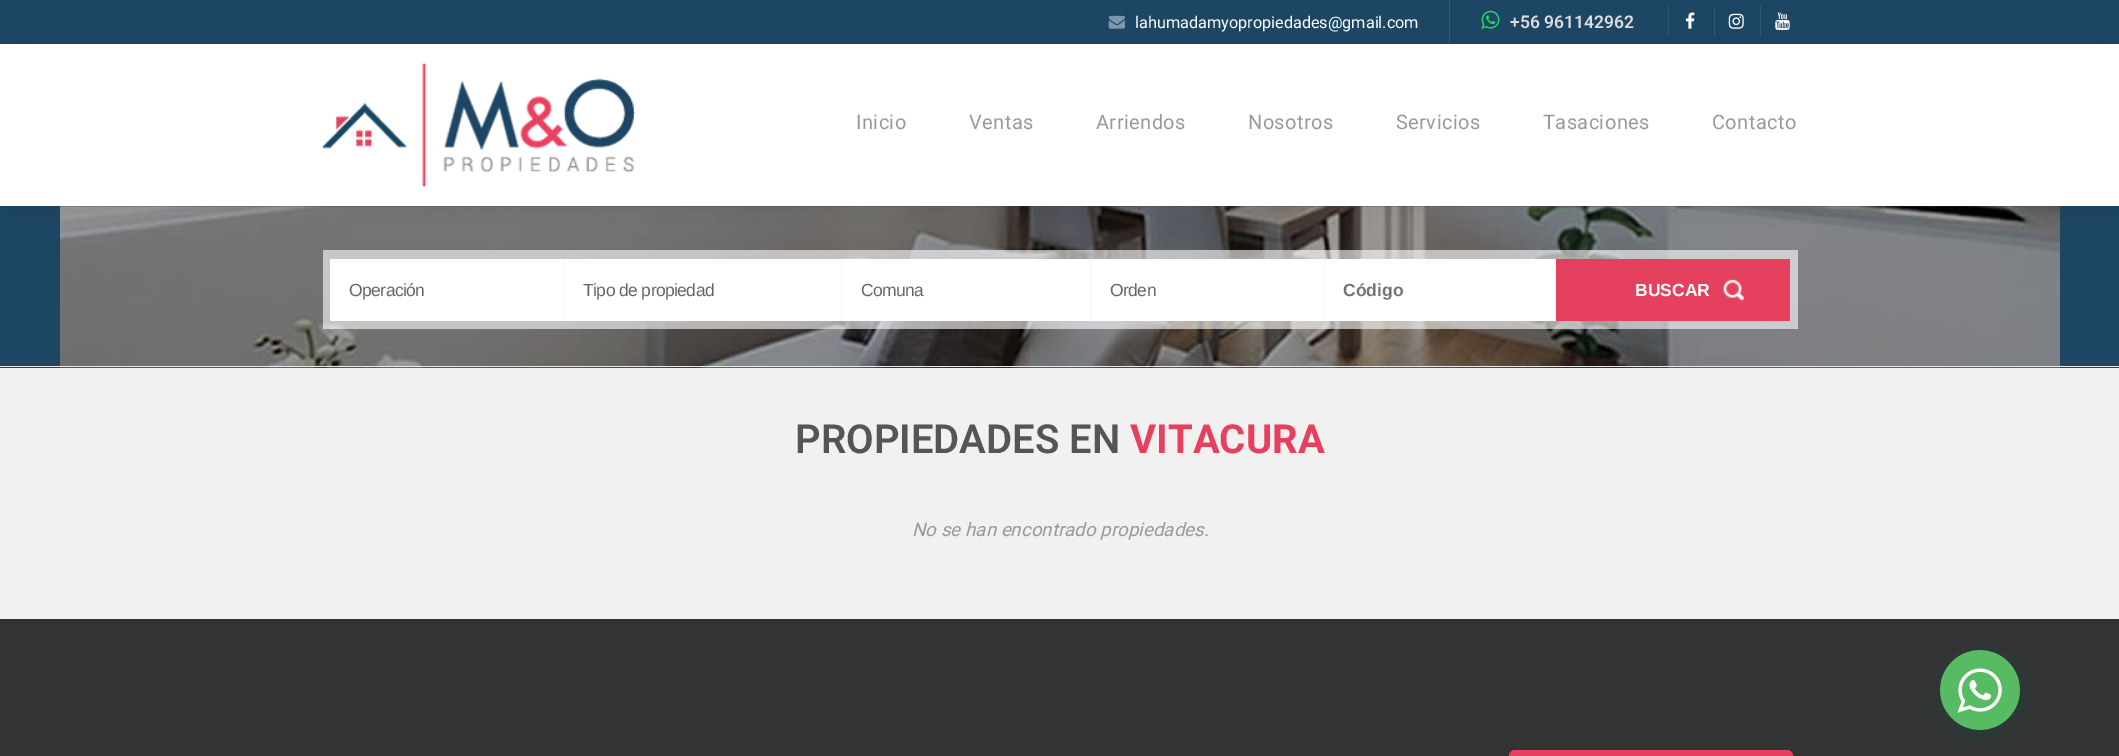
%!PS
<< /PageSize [2119 756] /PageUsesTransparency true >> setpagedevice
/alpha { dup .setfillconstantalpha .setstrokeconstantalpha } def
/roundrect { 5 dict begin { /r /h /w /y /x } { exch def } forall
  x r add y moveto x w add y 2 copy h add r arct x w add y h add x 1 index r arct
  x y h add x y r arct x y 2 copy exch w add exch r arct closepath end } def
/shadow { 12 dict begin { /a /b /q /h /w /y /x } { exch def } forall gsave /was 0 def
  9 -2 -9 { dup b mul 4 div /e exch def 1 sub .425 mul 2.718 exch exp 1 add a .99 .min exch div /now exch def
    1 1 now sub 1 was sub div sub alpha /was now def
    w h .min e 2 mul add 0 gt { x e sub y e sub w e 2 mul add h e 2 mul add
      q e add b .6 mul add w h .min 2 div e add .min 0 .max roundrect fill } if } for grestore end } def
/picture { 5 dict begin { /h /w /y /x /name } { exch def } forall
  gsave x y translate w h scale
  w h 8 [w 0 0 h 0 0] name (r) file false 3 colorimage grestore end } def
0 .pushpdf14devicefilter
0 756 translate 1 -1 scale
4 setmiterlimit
0.945 setgray
0 0 2119 756 rectfill
0.11 0.275 0.392 setrgbcolor
0 0 2119 44 rectfill
(img1.rgb) 1108 15 17 14 picture
/Roboto-Regular [16.25 0 0 -16.25 0 0] selectfont
1 setgray
1135 28 moveto (lahumadamyopropiedades@gmail.com) show
0.2 0.349 0.455 setrgbcolor
1449 0 1 44 rectfill
(img2.rgb) 1481 10 19 19 picture
/Roboto-SemiBold [17.5 0 0 -17.5 0 0] selectfont
0.867 setgray
1510 28 moveto (+56 961142962) show
0.2 0.349 0.455 setrgbcolor
1668 6 1 30 rectfill
(img3.rgb) 1685 12 10 17 picture
1714 6 1 30 rectfill
(img4.rgb) 1728 13 16 16 picture
1760 6 1 30 rectfill
(img5.rgb) 1775 12 15 18 picture
0.11 0.275 0.392 setrgbcolor
0 206 2119 162 rectfill
(img7.rgb) 60 206 2000 162 picture
0 setgray
15 64 2090 132 0 12.5 0.2 shadow
1 setgray
0 44 2119 162 rectfill
(img6.rgb) 322 63 313 124 picture
/Roboto-Regular [20 0 0 -20 0 0] selectfont
0.6 setgray
856 129 moveto 0.4 0 (Inicio) ashow
969 129 moveto 0.4 0 (Ventas) ashow
1096 129 moveto 0.4 0 (Arriendos) ashow
1248 129 moveto 0.4 0 (Nosotros) ashow
1396 129 moveto 0.4 0 (Servicios) ashow
1543 129 moveto 0.4 0 (Tasaciones) ashow
1712 129 moveto 0.4 0 (Contacto) ashow
0.914 setgray
0 366 2119 1 rectfill
0.6 alpha
1 setgray
323 250 1475 79 rectfill
1 alpha
330 259 233 62 rectfill
0.961 setgray
563 259 1 62 rectfill
/LiberationSans-Regular [17.5 0 0 -17.5 0 0] selectfont
0.4 setgray
349 296 moveto -0.6 0 (Operación) ashow
1 setgray
564 259 526 62 rectfill
0.961 setgray
841 259 1 62 rectfill
0.4 setgray
583 296 moveto -0.6 0 (Tipo de propiedad) ashow
0.961 setgray
1090 259 1 62 rectfill
0.4 setgray
861 296 moveto -0.6 0 (Comuna) ashow
1 setgray
1091 259 233 62 rectfill
0.961 setgray
1324 259 1 62 rectfill
0.4 setgray
1110 296 moveto -0.6 0 (Orden) ashow
1 setgray
1325 259 231 62 rectfill
/LiberationSans-Bold [17.5 0 0 -17.5 0 0] selectfont
0.459 setgray
1343 296 moveto (Código) show
0.898 0.255 0.373 setrgbcolor
1556 259 234 62 rectfill
(img8.rgb) 1723 279 21 22 picture
1 setgray
1635 296 moveto (BUSCAR) show
/Roboto-SemiBold [40 0 0 -40 0 0] selectfont
0.333 setgray
795 453 moveto (PROPIEDADES EN) show
/Roboto-Bold [40 0 0 -40 0 0] selectfont
0.898 0.255 0.373 setrgbcolor
1130 453 moveto (VITACURA) show
/Roboto-Italic [18.75 0 0 -18.75 0 0] selectfont
0.6 setgray
912 536 moveto (No se han encontrado propiedades.) show
0.2 setgray
0 619 2119 137 rectfill
0.027 0.369 0.329 setrgbcolor
1941 658 80 80 40 15 0.24 shadow
(img9.rgb) 1940 650 80 80 picture
0.898 0.255 0.373 setrgbcolor
1509.5 750.5 283 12 5.5 roundrect gsave fill grestore
stroke
.poppdf14devicefilter showpage
